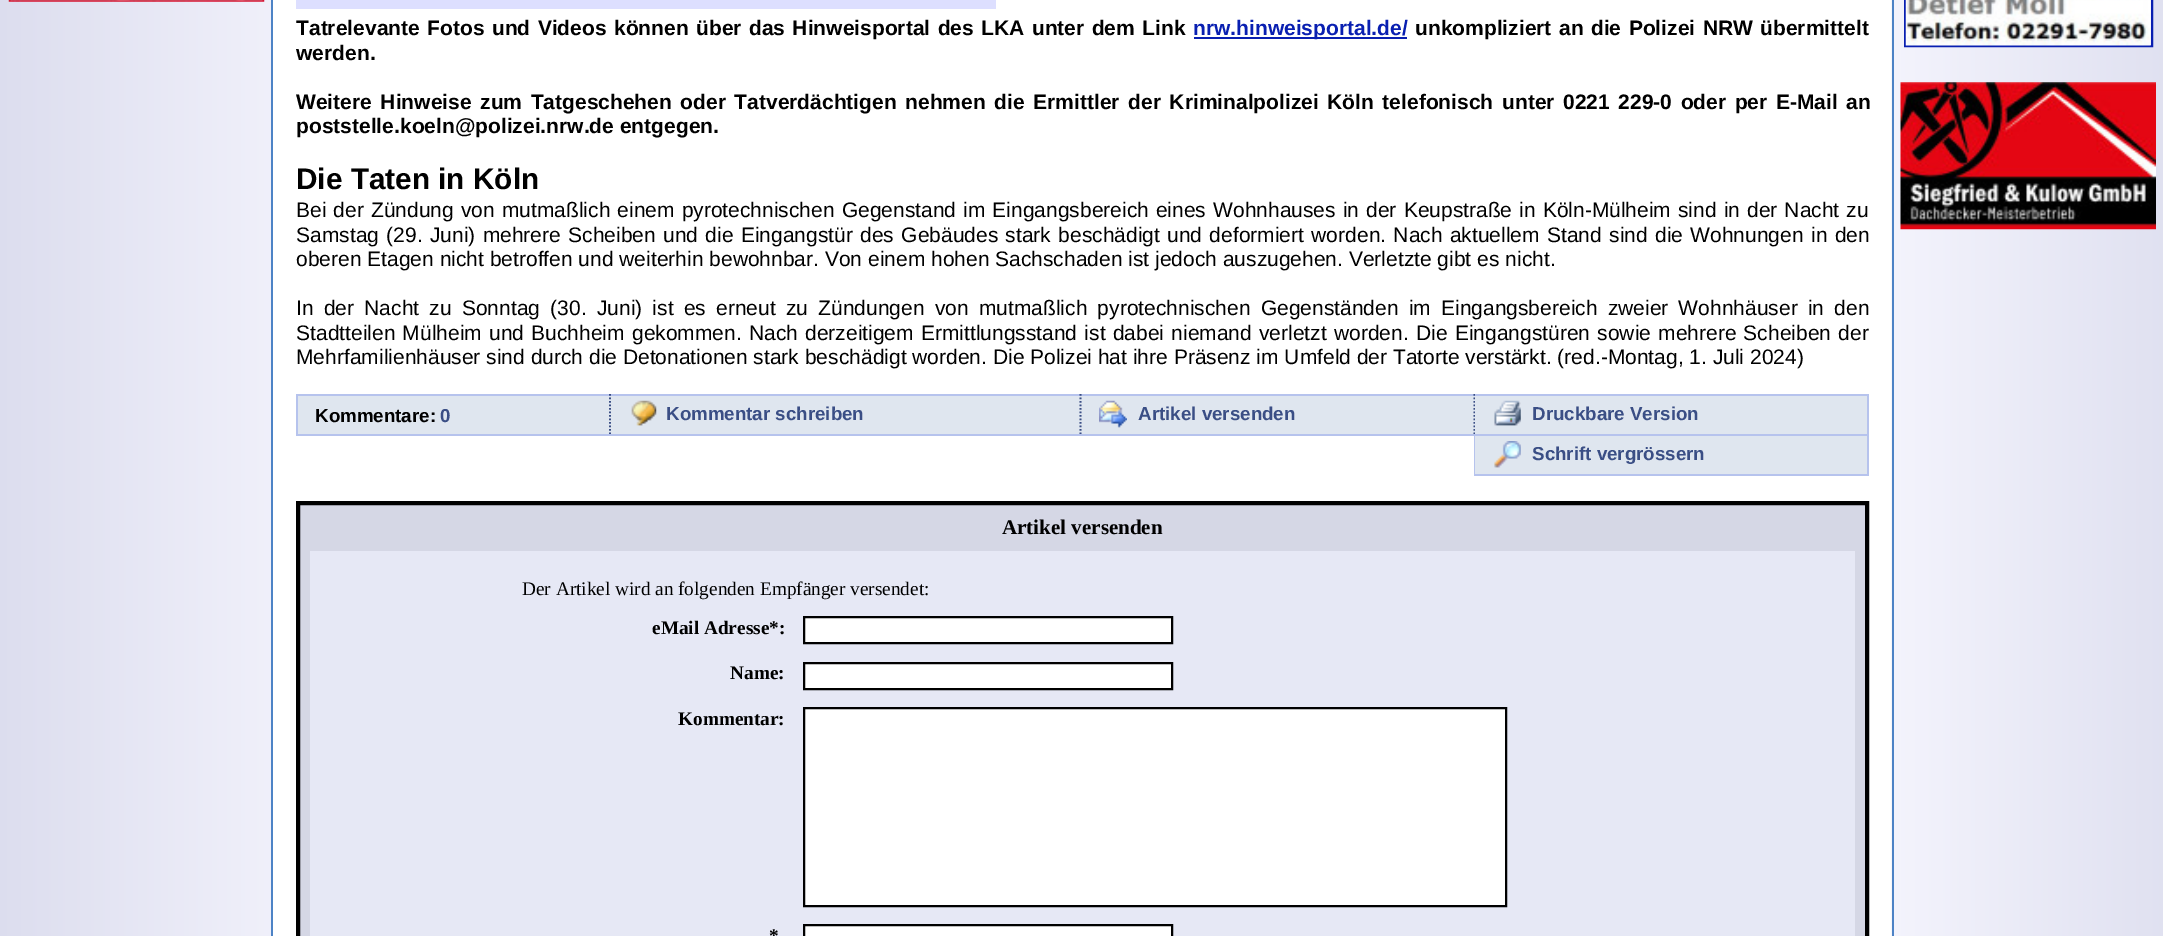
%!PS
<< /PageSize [2163 936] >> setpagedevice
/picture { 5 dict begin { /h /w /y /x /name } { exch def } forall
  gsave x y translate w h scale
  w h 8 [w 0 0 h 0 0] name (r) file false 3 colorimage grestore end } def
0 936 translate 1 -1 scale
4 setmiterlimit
1 setgray
0 0 2163 936 rectfill
(img1.rgb) 0 0 271 936 picture
0.302 0.514 0.776 setrgbcolor
271 0 2 936 rectfill
(img2.rgb) 8 0 257 2 picture
0.867 0.875 1 setrgbcolor
296 0 700 9 rectfill
/LiberationSans-Bold [21 0 0 -21 0 0] selectfont
0 setgray
296 35 moveto 1.6 0 32 (Tatrelevante Fotos und Videos können über das Hinweisportal des LKA unter dem Link) widthshow
0.035 0.122 0.694 setrgbcolor
1194 37 213 2 rectfill
1193 35 moveto (nrw.hinweisportal.de/) show
0 setgray
1415 35 moveto 1.6 0 32 (unkompliziert an die Polizei NRW übermittelt) widthshow
296 60 moveto (werden.) show
296 109 moveto 2.75 0 32 (Weitere Hinweise zum Tatgeschehen oder Tatverdächtigen nehmen die Ermittler der Kriminalpolizei Köln telefonisch unter 0221 229-0 oder per E-Mail an) widthshow
296 133 moveto (poststelle.koeln@polizei.nrw.de entgegen.) show
/LiberationSans-Bold [29.75 0 0 -29.75 0 0] selectfont
296 189 moveto (Die Taten in Köln) show
/LiberationSans-Regular [21 0 0 -21 0 0] selectfont
296 217 moveto 1.25 0 32 (Bei der Zündung von mutmaßlich einem pyrotechnischen Gegenstand im Eingangsbereich eines Wohnhauses in der Keupstraße in Köln-Mülheim sind in der Nacht zu) widthshow
296 242 moveto 1.5 0 32 (Samstag \(29. Juni\) mehrere Scheiben und die Eingangstür des Gebäudes stark beschädigt und deformiert worden. Nach aktuellem Stand sind die Wohnungen in den) widthshow
296 266 moveto (oberen Etagen nicht betroffen und weiterhin bewohnbar. Von einem hohen Sachschaden ist jedoch auszugehen. Verletzte gibt es nicht.) show
296 315 moveto 4.4 0 32 (In der Nacht zu Sonntag \(30. Juni\) ist es erneut zu Zündungen von mutmaßlich pyrotechnischen Gegenständen im Eingangsbereich zweier Wohnhäuser in den) widthshow
296 340 moveto 1.4 0 32 (Stadtteilen Mülheim und Buchheim gekommen. Nach derzeitigem Ermittlungsstand ist dabei niemand verletzt worden. Die Eingangstüren sowie mehrere Scheiben der) widthshow
296 364 moveto (Mehrfamilienhäuser sind durch die Detonationen stark beschädigt worden. Die Polizei hat ihre Präsenz im Umfeld der Tatorte verstärkt. \(red.-Montag, 1. Juli 2024\)) show
0.875 0.902 0.937 setrgbcolor
298 396 1177 38 rectfill
0.714 0.765 0.929 setrgbcolor
296 394 1179 2 rectfill
0.227 0.306 0.522 setrgbcolor
1.8 setlinewidth
[1.75 1.75] 0 setdash
newpath 610 394 moveto 610 436 lineto stroke
0.714 0.765 0.929 setrgbcolor
296 434 315 2 rectfill
296 394 2 42 rectfill
/LiberationSans-Bold [18.75 0 0 -18.75 0 0] selectfont
0 setgray
315 422 moveto (Kommentare:) show
0.227 0.306 0.522 setrgbcolor
440 422 moveto (0) show
newpath 1080.5 394 moveto 1080.5 436 lineto stroke
0.714 0.765 0.929 setrgbcolor
611 434 471 2 rectfill
(img3.rgb) 631 400 26 26 picture
0.227 0.306 0.522 setrgbcolor
666 420 moveto (Kommentar schreiben) show
newpath 1474.5 394 moveto 1474.5 436 lineto stroke
0.714 0.765 0.929 setrgbcolor
1082 434 393 2 rectfill
(img4.rgb) 1099 400 28 28 picture
0.227 0.306 0.522 setrgbcolor
1138 420 moveto (Artikel versenden) show
0.875 0.902 0.937 setrgbcolor
1475 396 392 38 rectfill
0.714 0.765 0.929 setrgbcolor
1475 394 394 2 rectfill
1867 394 2 82 rectfill
1475 434 394 2 rectfill
(img5.rgb) 1494 400 27 26 picture
0.227 0.306 0.522 setrgbcolor
1532 420 moveto (Druckbare Version) show
0.714 0.765 0.929 setrgbcolor
1474 436 1 40 rectfill
0.875 0.902 0.937 setrgbcolor
1475 436 392 38 rectfill
0.714 0.765 0.929 setrgbcolor
1475 474 394 2 rectfill
(img6.rgb) 1494 441 27 27 picture
0.227 0.306 0.522 setrgbcolor
1532 460 moveto (Schrift vergrössern) show
0.835 0.843 0.898 setrgbcolor
newpath 298 503 moveto 1867 503 lineto 1867 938 lineto 298 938 lineto closepath gsave fill grestore
0 setgray
4 setlinewidth
[] 0 setdash
stroke
/LiberationSerif-Bold [21 0 0 -21 0 0] selectfont
1002 534 moveto (Artikel versenden) show
0.902 0.91 0.961 setrgbcolor
310 551 1545 385 rectfill
/LiberationSerif-Regular [19.25 0 0 -19.25 0 0] selectfont
0 setgray
522 595 moveto (Der Artikel wird an folgenden Empfänger versendet:) show
/LiberationSerif-Bold [19.25 0 0 -19.25 0 0] selectfont
652 634 moveto (eMail Adresse*:) show
1 setgray
newpath 804 617 moveto 1172 617 lineto 1172 643 lineto 804 643 lineto closepath gsave fill grestore
0 setgray
2 setlinewidth
stroke
730 679 moveto (Name:) show
1 setgray
newpath 804 663 moveto 1172 663 lineto 1172 689 lineto 804 689 lineto closepath gsave fill grestore
0 setgray
stroke
678 725 moveto (Kommentar:) show
1 setgray
newpath 804 708 moveto 1506 708 lineto 1506 906 lineto 804 906 lineto closepath gsave fill grestore
0 setgray
stroke
769 942 moveto (*) show
1 setgray
newpath 804 925 moveto 1172 925 lineto 1172 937 lineto 804 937 lineto closepath gsave fill grestore
0 setgray
stroke
(img7.rgb) 1891 0 272 936 picture
0.302 0.514 0.776 setrgbcolor
1892 0 2 936 rectfill
0.035 0.122 0.694 setrgbcolor
1905 -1 247 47 rectstroke
(img8.rgb) 1905 0 246 46 picture
(img9.rgb) 1900 82 256 148 picture
showpage
